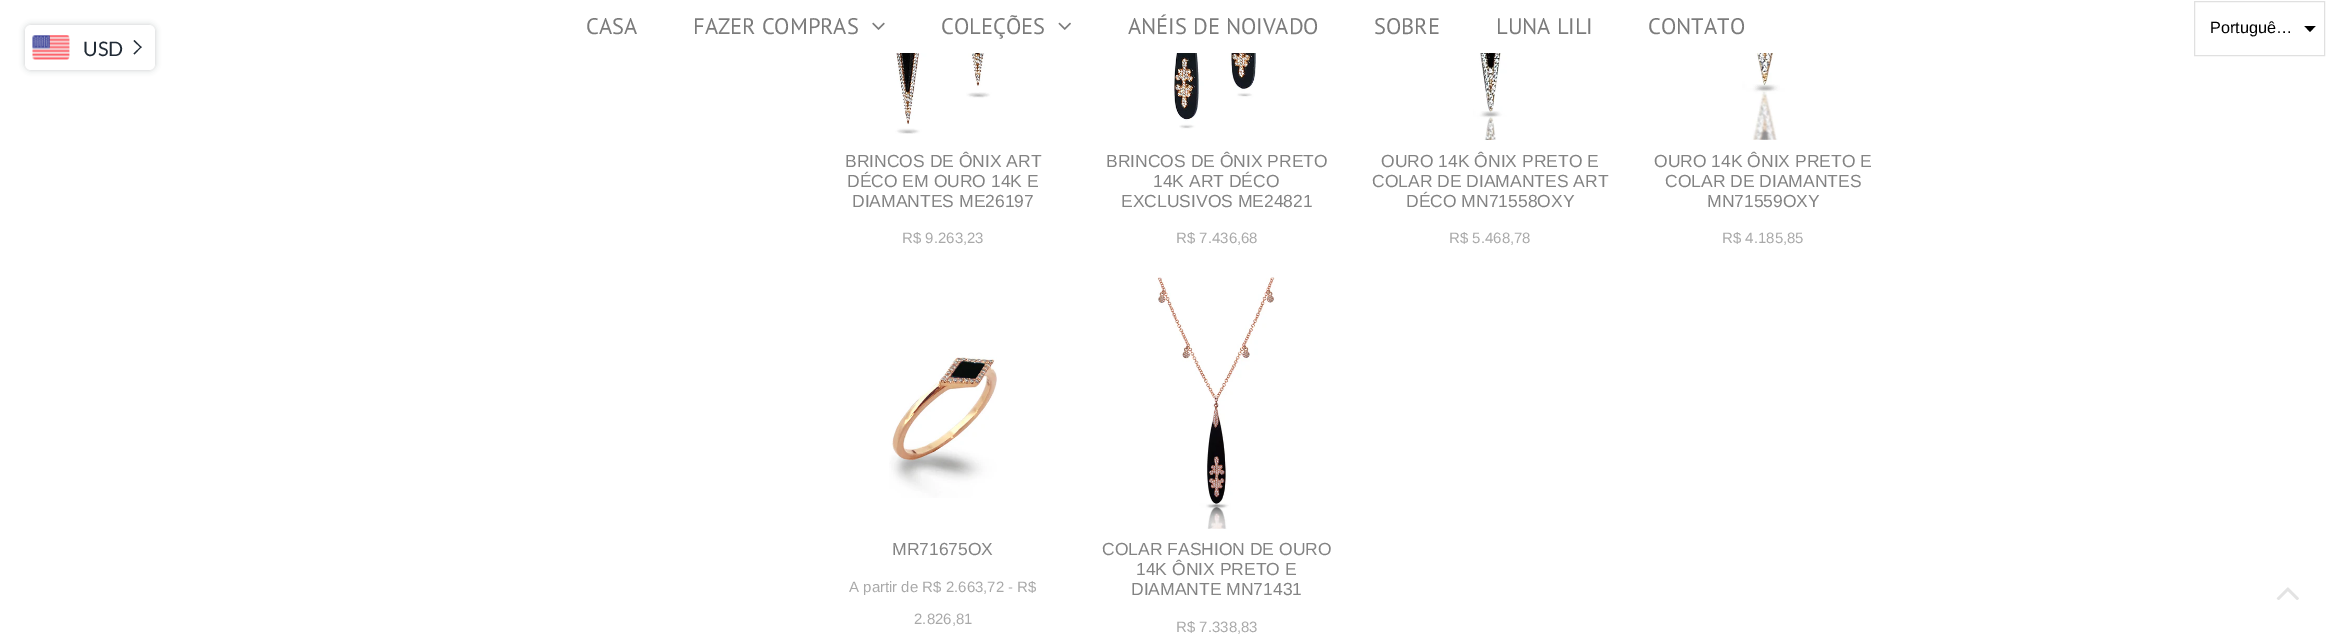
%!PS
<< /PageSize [2331 634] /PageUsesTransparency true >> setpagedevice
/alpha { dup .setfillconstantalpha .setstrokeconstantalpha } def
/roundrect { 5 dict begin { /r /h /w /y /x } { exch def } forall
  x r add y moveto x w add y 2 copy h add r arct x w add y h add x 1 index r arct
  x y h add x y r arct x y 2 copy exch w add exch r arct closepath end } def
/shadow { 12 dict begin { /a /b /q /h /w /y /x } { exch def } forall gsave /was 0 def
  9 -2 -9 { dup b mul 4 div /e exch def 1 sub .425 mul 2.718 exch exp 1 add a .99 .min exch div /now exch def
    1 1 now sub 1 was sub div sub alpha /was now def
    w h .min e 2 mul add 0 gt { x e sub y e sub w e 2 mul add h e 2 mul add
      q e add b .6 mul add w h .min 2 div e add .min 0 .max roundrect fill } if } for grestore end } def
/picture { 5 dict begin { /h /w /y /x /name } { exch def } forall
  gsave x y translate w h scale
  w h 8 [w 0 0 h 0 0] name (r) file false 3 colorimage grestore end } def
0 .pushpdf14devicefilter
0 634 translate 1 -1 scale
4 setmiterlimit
1 setgray
0 0 2331 634 rectfill
/PTSans-Regular [22.5 0 0 -22.5 0 0] selectfont
0.482 setgray
586 34 moveto (CASA) show
693 34 moveto (FAZER COMPRAS) show
(img1.rgb) 872 22 13 8 picture
941 34 moveto (COLEÇÕES) show
(img2.rgb) 1058 22 13 8 picture
1128 34 moveto (ANÉIS DE NOIVADO) show
1374 34 moveto (SOBRE) show
1496 34 moveto (LUNA LILI) show
1648 34 moveto (CONTATO) show
(img3.rgb) 889 53 103 81 picture
/LiberationSans-Regular [17.5 0 0 -17.5 0 0] selectfont
0.514 setgray
845 167 moveto (BRINCOS DE ÔNIX ART) show
847 187 moveto (DÉCO EM OURO 14K E) show
852 207 moveto (DIAMANTES ME26197) show
/LiberationSans-Regular [15 0 0 -15 0 0] selectfont
0.663 setgray
902 243 moveto (R$ 9.263,23) show
(img4.rgb) 1174 53 82 76 picture
/LiberationSans-Regular [17.5 0 0 -17.5 0 0] selectfont
0.514 setgray
1106 167 moveto (BRINCOS DE ÔNIX PRETO) show
1153 187 moveto (14K ART DÉCO) show
1121 207 moveto (EXCLUSIVOS ME24821) show
/LiberationSans-Regular [15 0 0 -15 0 0] selectfont
0.663 setgray
1176 243 moveto (R$ 7.436,68) show
(img5.rgb) 1473 53 34 87 picture
/LiberationSans-Regular [17.5 0 0 -17.5 0 0] selectfont
0.514 setgray
1381 167 moveto (OURO 14K ÔNIX PRETO E) show
1372 187 moveto (COLAR DE DIAMANTES ART) show
1406 207 moveto (DÉCO MN71558OXY) show
/LiberationSans-Regular [15 0 0 -15 0 0] selectfont
0.663 setgray
1449 243 moveto (R$ 5.468,78) show
(img6.rgb) 1742 53 43 87 picture
/LiberationSans-Regular [17.5 0 0 -17.5 0 0] selectfont
0.514 setgray
1654 167 moveto (OURO 14K ÔNIX PRETO E) show
1665 187 moveto (COLAR DE DIAMANTES) show
1707 207 moveto (MN71559OXY) show
/LiberationSans-Regular [15 0 0 -15 0 0] selectfont
0.663 setgray
1722 243 moveto (R$ 4.185,85) show
(img7.rgb) 889 357 108 141 picture
/LiberationSans-Regular [17.5 0 0 -17.5 0 0] selectfont
0.514 setgray
892 555 moveto (MR71675OX) show
/LiberationSans-Regular [15 0 0 -15 0 0] selectfont
0.663 setgray
849 592 moveto (A partir de R$ 2.663,72 - R$) show
914 624 moveto (2.826,81) show
(img8.rgb) 1157 277 118 252 picture
/LiberationSans-Regular [17.5 0 0 -17.5 0 0] selectfont
0.514 setgray
1102 555 moveto (COLAR FASHION DE OURO) show
1136 575 moveto (14K ÔNIX PRETO E) show
1131 595 moveto (DIAMANTE MN71431) show
/LiberationSans-Regular [15 0 0 -15 0 0] selectfont
0.663 setgray
1176 632 moveto (R$ 7.338,83) show
(img9.rgb) 2276 587 23 13 picture
0.878 setgray
2194.5 1.5 130 54 rectstroke
/LiberationSans-Regular [16.25 0 0 -16.25 0 0] selectfont
0 setgray
2210 33 moveto (Portuguê…) show
gsave
2304 26 12 7 rectclip
newpath 2316 25.5 moveto 2310 32 lineto 2304 25.5 lineto closepath eofill
grestore
0.129 0.169 0.212 setrgbcolor
25 25 130 45 6 3 0.25 shadow
1 setgray
25 25 130 45 6 roundrect fill
(img10.rgb) 32 35 38 25 picture
/Lato-Regular [20 0 0 -20 0 0] selectfont
0.129 0.169 0.212 setrgbcolor
83 56 moveto (USD) show
newpath 133.5 41 moveto 134.5 40 lineto 141.5 47 lineto 141 48 lineto closepath fill
newpath 133.5 53.5 moveto 141 46.5 lineto 141.5 47 lineto 134.5 54.5 lineto closepath fill
.poppdf14devicefilter showpage
